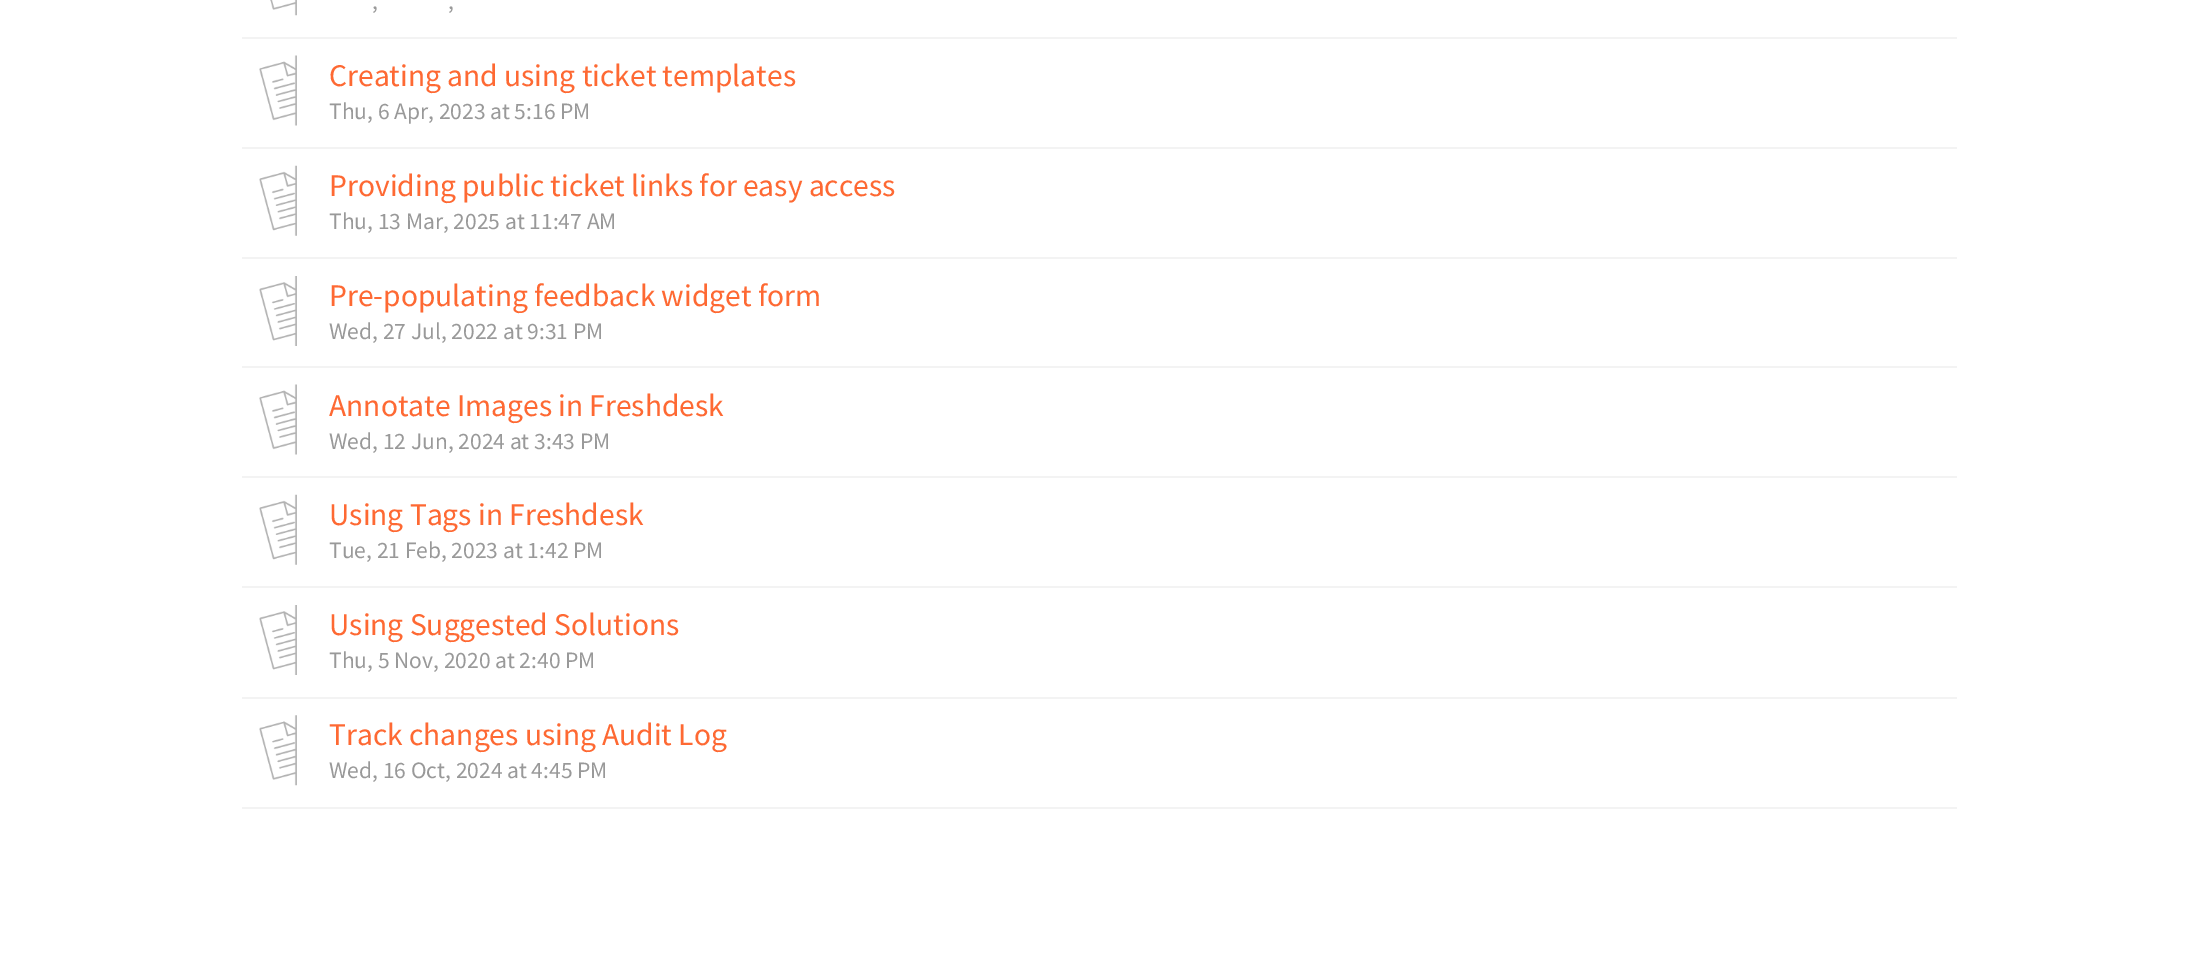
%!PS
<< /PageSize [2198 967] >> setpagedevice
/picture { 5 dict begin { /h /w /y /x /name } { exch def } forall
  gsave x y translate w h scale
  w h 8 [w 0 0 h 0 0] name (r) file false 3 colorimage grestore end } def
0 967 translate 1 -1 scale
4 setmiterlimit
1 setgray
0 0 2198 967 rectfill
0.953 setgray
242 807 1715 2 rectfill
(img1.rgb) 270 0 27 16 picture
/SourceSansPro-Regular [23.5 0 0 -23.5 0 0] selectfont
0.6 setgray
372 9 moveto (,) show
448 9 moveto (,) show
0.953 setgray
242 37 1715 2 rectfill
(img2.rgb) 259 55 38 71 picture
/SourceSansPro-Regular [31.5 0 0 -31.5 0 0] selectfont
0.996 0.412 0.2 setrgbcolor
329 86 moveto (Creating and using ticket templates) show
/SourceSansPro-Regular [23.5 0 0 -23.5 0 0] selectfont
0.6 setgray
329 119 moveto (Thu, 6 Apr, 2023 at 5:16 PM) show
0.953 setgray
242 147 1715 2 rectfill
(img3.rgb) 259 165 38 71 picture
/SourceSansPro-Regular [31.5 0 0 -31.5 0 0] selectfont
0.996 0.412 0.2 setrgbcolor
329 196 moveto (Providing public ticket links for easy access) show
/SourceSansPro-Regular [23.5 0 0 -23.5 0 0] selectfont
0.6 setgray
329 229 moveto (Thu, 13 Mar, 2025 at 11:47 AM) show
0.953 setgray
242 257 1715 2 rectfill
(img4.rgb) 259 276 38 70 picture
/SourceSansPro-Regular [31.5 0 0 -31.5 0 0] selectfont
0.996 0.412 0.2 setrgbcolor
329 306 moveto (Pre-populating feedback widget form) show
/SourceSansPro-Regular [23.5 0 0 -23.5 0 0] selectfont
0.6 setgray
329 339 moveto (Wed, 27 Jul, 2022 at 9:31 PM) show
0.953 setgray
242 366 1715 2 rectfill
(img2.rgb) 259 384 38 71 picture
/SourceSansPro-Regular [31.5 0 0 -31.5 0 0] selectfont
0.996 0.412 0.2 setrgbcolor
329 416 moveto (Annotate Images in Freshdesk) show
/SourceSansPro-Regular [23.5 0 0 -23.5 0 0] selectfont
0.6 setgray
329 449 moveto (Wed, 12 Jun, 2024 at 3:43 PM) show
0.953 setgray
242 476 1715 2 rectfill
(img3.rgb) 259 494 38 71 picture
/SourceSansPro-Regular [31.5 0 0 -31.5 0 0] selectfont
0.996 0.412 0.2 setrgbcolor
329 525 moveto (Using Tags in Freshdesk) show
/SourceSansPro-Regular [23.5 0 0 -23.5 0 0] selectfont
0.6 setgray
329 558 moveto (Tue, 21 Feb, 2023 at 1:42 PM) show
0.953 setgray
242 586 1715 2 rectfill
(img4.rgb) 259 605 38 70 picture
/SourceSansPro-Regular [31.5 0 0 -31.5 0 0] selectfont
0.996 0.412 0.2 setrgbcolor
329 635 moveto (Using Suggested Solutions) show
/SourceSansPro-Regular [23.5 0 0 -23.5 0 0] selectfont
0.6 setgray
329 668 moveto (Thu, 5 Nov, 2020 at 2:40 PM) show
0.953 setgray
242 697 1715 2 rectfill
(img5.rgb) 259 715 38 71 picture
/SourceSansPro-Regular [31.5 0 0 -31.5 0 0] selectfont
0.996 0.412 0.2 setrgbcolor
329 745 moveto (Track changes using Audit Log) show
/SourceSansPro-Regular [23.5 0 0 -23.5 0 0] selectfont
0.6 setgray
329 778 moveto (Wed, 16 Oct, 2024 at 4:45 PM) show
showpage
